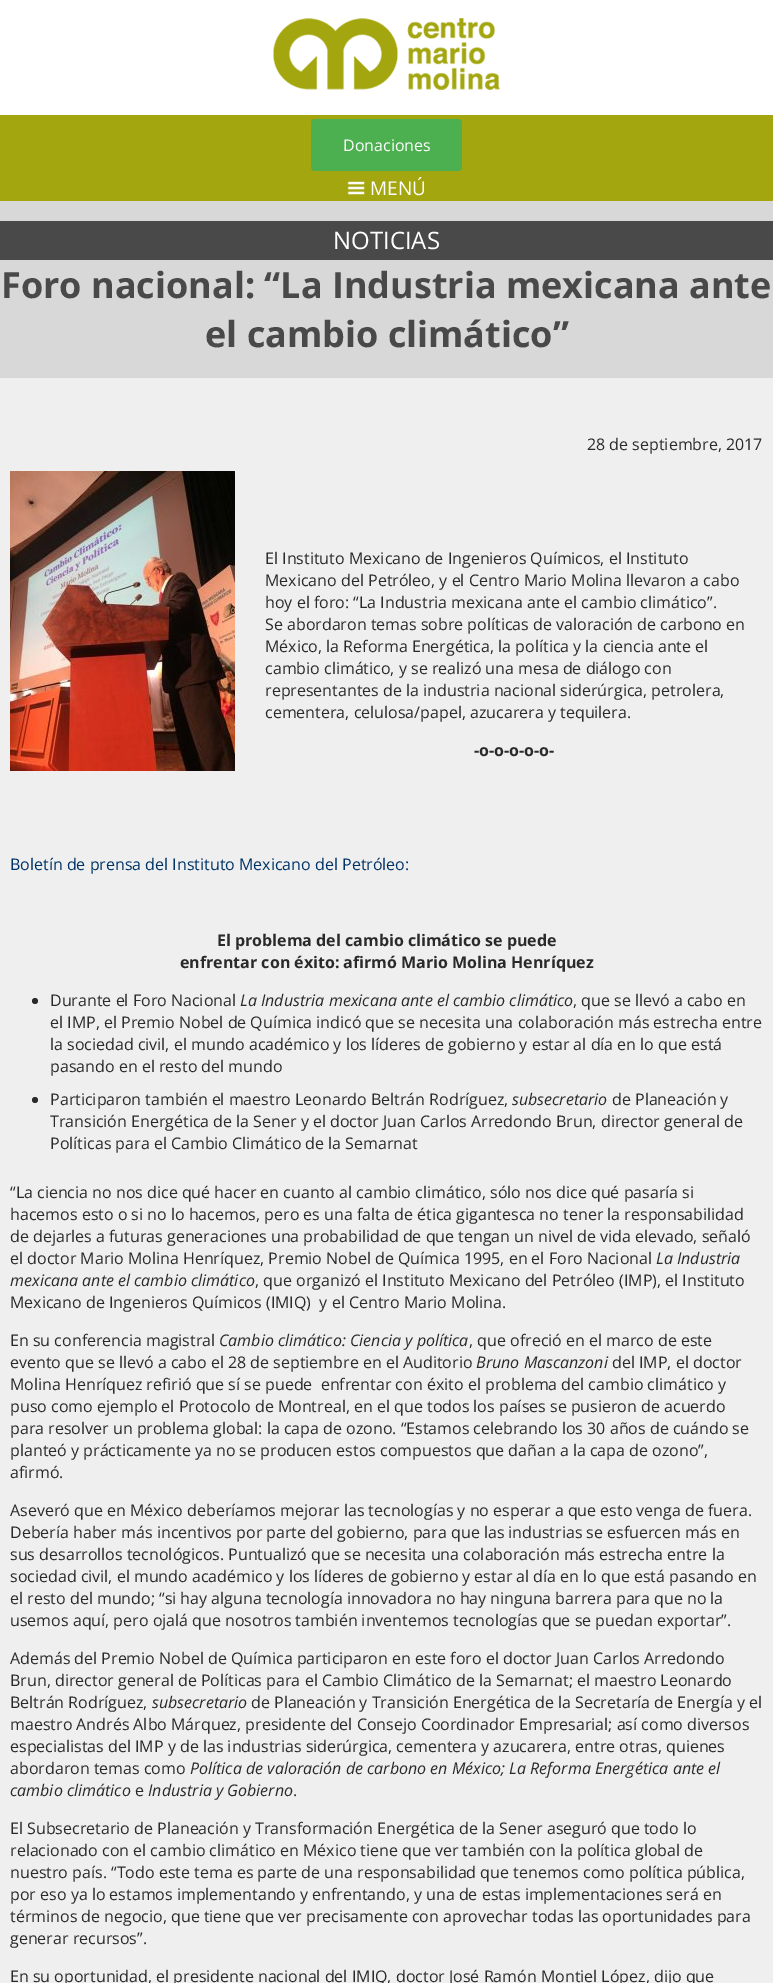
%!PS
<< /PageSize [773 1983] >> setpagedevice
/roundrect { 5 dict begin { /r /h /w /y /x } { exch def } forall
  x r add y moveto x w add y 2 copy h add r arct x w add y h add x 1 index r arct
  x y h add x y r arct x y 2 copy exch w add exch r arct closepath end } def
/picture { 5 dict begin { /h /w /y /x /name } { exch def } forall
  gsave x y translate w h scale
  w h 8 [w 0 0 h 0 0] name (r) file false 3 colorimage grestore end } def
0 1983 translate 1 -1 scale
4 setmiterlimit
1 setgray
0 0 773 1983 rectfill
(img1.rgb) 273 18 227 72 picture
0.639 0.651 0.059 setrgbcolor
0 115 773 86 rectfill
0.298 0.686 0.314 setrgbcolor
311 119 151 52 4 roundrect fill
/OpenSans-Regular [16 0 0 -16 0 0] selectfont
1 setgray
343 151 moveto (Donaciones) show
(img2.rgb) 347 181 18 14 picture
/OpenSans-Regular [19 0 0 -19 0 0] selectfont
370 195 moveto (MENÚ) show
0.847 setgray
0 201 773 177 rectfill
0.286 setgray
0 221 773 39 rectfill
/OpenSans-Regular [24 0 0 -24 0 0] selectfont
1 setgray
333 249 moveto (NOTICIAS) show
/OpenSans-Bold [36 0 0 -36 0 0] selectfont
0.286 setgray
1 298 moveto (Foro nacional: “La Industria mexicana ante) show
205 347 moveto (el cambio climático”) show
0.937 setgray
0 378 773 1605 rectfill
/OpenSans-Regular [16 0 0 -16 0 0] selectfont
0.165 setgray
587 450 moveto (28 de septiembre, 2017) show
(img3.rgb) 10 471 225 300 picture
265 564 moveto (El Instituto Mexicano de Ingenieros Químicos, el Instituto) show
265 586 moveto (Mexicano del Petróleo, y el Centro Mario Molina llevaron a cabo) show
265 608 moveto (hoy el foro: “La Industria mexicana ante el cambio climático”.) show
265 630 moveto (Se abordaron temas sobre políticas de valoración de carbono en) show
265 652 moveto (México, la Reforma Energética, la política y la ciencia ante el) show
265 674 moveto (cambio climático, y se realizó una mesa de diálogo con) show
265 696 moveto (representantes de la industria nacional siderúrgica, petrolera,) show
265 718 moveto (cementera, celulosa/papel, azucarera y tequilera.) show
/OpenSans-Bold [16 0 0 -16 0 0] selectfont
474 756 moveto (-o-o-o-o-o-) show
/OpenSans-Regular [16 0 0 -16 0 0] selectfont
0 0.2 0.4 setrgbcolor
10 870 moveto (Boletín de prensa del Instituto Mexicano del Petróleo:) show
/OpenSans-Bold [16 0 0 -16 0 0] selectfont
0.165 setgray
217 946 moveto (El problema del cambio climático se puede) show
180 968 moveto (enfrentar con éxito: afirmó Mario Molina Henríquez) show
newpath 35 1001 3 0 360 arc closepath fill
/OpenSans-Regular [16 0 0 -16 0 0] selectfont
50 1006 moveto (Durante el Foro Nacional) show
/OpenSans-Italic [16 0 0 -16 0 0] selectfont
240 1006 moveto (La Industria mexicana ante el cambio climático) show
/OpenSans-Regular [16 0 0 -16 0 0] selectfont
573 1006 moveto (, que se llevó a cabo en) show
50 1028 moveto (el IMP, el Premio Nobel de Química indicó que se necesita una colaboración más estrecha entre) show
50 1050 moveto (la sociedad civil, el mundo académico y los líderes de gobierno y estar al día en lo que está) show
50 1072 moveto (pasando en el resto del mundo) show
newpath 35 1100 3 0 360 arc closepath fill
50 1105 moveto (Participaron también el maestro Leonardo Beltrán Rodríguez,) show
/OpenSans-Italic [16 0 0 -16 0 0] selectfont
512 1105 moveto (subsecretario) show
/OpenSans-Regular [16 0 0 -16 0 0] selectfont
612 1105 moveto (de Planeación y) show
50 1127 moveto (Transición Energética de la Sener y el doctor Juan Carlos Arredondo Brun, director general de) show
50 1149 moveto (Políticas para el Cambio Climático de la Semarnat) show
10 1198 moveto (“La ciencia no nos dice qué hacer en cuanto al cambio climático, sólo nos dice qué pasaría si) show
10 1220 moveto (hacemos esto o si no lo hacemos, pero es una falta de ética gigantesca no tener la responsabilidad) show
10 1242 moveto (de dejarles a futuras generaciones una probabilidad de que tengan un nivel de vida elevado, señaló) show
10 1264 moveto (el doctor Mario Molina Henríquez, Premio Nobel de Química 1995, en el Foro Nacional) show
/OpenSans-Italic [16 0 0 -16 0 0] selectfont
656 1264 moveto (La Industria) show
10 1286 moveto (mexicana ante el cambio climático) show
/OpenSans-Regular [16 0 0 -16 0 0] selectfont
255 1286 moveto (, que organizó el Instituto Mexicano del Petróleo \(IMP\), el Instituto) show
10 1308 moveto (Mexicano de Ingenieros Químicos \(IMIQ\)  y el Centro Mario Molina.) show
10 1346 moveto (En su conferencia magistral) show
/OpenSans-Italic [16 0 0 -16 0 0] selectfont
219 1346 moveto (Cambio climático: Ciencia y política) show
/OpenSans-Regular [16 0 0 -16 0 0] selectfont
469 1346 moveto (, que ofreció en el marco de este) show
10 1368 moveto (evento que se llevó a cabo el 28 de septiembre en el Auditorio) show
/OpenSans-Italic [16 0 0 -16 0 0] selectfont
476 1368 moveto (Bruno Mascanzoni) show
/OpenSans-Regular [16 0 0 -16 0 0] selectfont
612 1368 moveto (del IMP, el doctor) show
10 1390 moveto (Molina Henríquez refirió que sí se puede  enfrentar con éxito el problema del cambio climático y) show
10 1412 moveto (puso como ejemplo el Protocolo de Montreal, en el que todos los países se pusieron de acuerdo) show
10 1434 moveto (para resolver un problema global: la capa de ozono. “Estamos celebrando los 30 años de cuándo se) show
10 1456 moveto (planteó y prácticamente ya no se producen estos compuestos que dañan a la capa de ozono”,) show
10 1478 moveto (afirmó.) show
10 1516 moveto (Aseveró que en México deberíamos mejorar las tecnologías y no esperar a que esto venga de fuera.) show
10 1538 moveto (Debería haber más incentivos por parte del gobierno, para que las industrias se esfuercen más en) show
10 1560 moveto (sus desarrollos tecnológicos. Puntualizó que se necesita una colaboración más estrecha entre la) show
10 1582 moveto (sociedad civil, el mundo académico y los líderes de gobierno y estar al día en lo que está pasando en) show
10 1604 moveto (el resto del mundo; “si hay alguna tecnología innovadora no hay ninguna barrera para que no la) show
10 1626 moveto (usemos aquí, pero ojalá que nosotros también inventemos tecnologías que se puedan exportar”.) show
10 1664 moveto (Además del Premio Nobel de Química participaron en este foro el doctor Juan Carlos Arredondo) show
10 1686 moveto (Brun, director general de Políticas para el Cambio Climático de la Semarnat; el maestro Leonardo) show
10 1708 moveto (Beltrán Rodríguez,) show
/OpenSans-Italic [16 0 0 -16 0 0] selectfont
152 1708 moveto (subsecretario) show
/OpenSans-Regular [16 0 0 -16 0 0] selectfont
251 1708 moveto (de Planeación y Transición Energética de la Secretaría de Energía y el) show
10 1730 moveto (maestro Andrés Albo Márquez, presidente del Consejo Coordinador Empresarial; así como diversos) show
10 1752 moveto (especialistas del IMP y de las industrias siderúrgica, cementera y azucarera, entre otras, quienes) show
10 1774 moveto (abordaron temas como) show
/OpenSans-Italic [16 0 0 -16 0 0] selectfont
190 1774 moveto (Política de valoración de carbono en México; La Reforma Energética ante el) show
10 1796 moveto (cambio climático) show
/OpenSans-Regular [16 0 0 -16 0 0] selectfont
135 1796 moveto (e) show
/OpenSans-Italic [16 0 0 -16 0 0] selectfont
148 1796 moveto (Industria y Gobierno) show
/OpenSans-Regular [16 0 0 -16 0 0] selectfont
293 1796 moveto (.) show
10 1834 moveto (El Subsecretario de Planeación y Transformación Energética de la Sener aseguró que todo lo) show
10 1856 moveto (relacionado con el cambio climático en México tiene que ver también con la política global de) show
10 1878 moveto (nuestro país. “Todo este tema es parte de una responsabilidad que tenemos como política pública,) show
10 1900 moveto (por eso ya lo estamos implementando y enfrentando, y una de estas implementaciones será en) show
10 1922 moveto (términos de negocio, que tiene que ver precisamente con aprovechar todas las oportunidades para) show
10 1944 moveto (generar recursos”.) show
10 1982 moveto (En su oportunidad, el presidente nacional del IMIQ, doctor José Ramón Montiel López, dijo que) show
showpage
